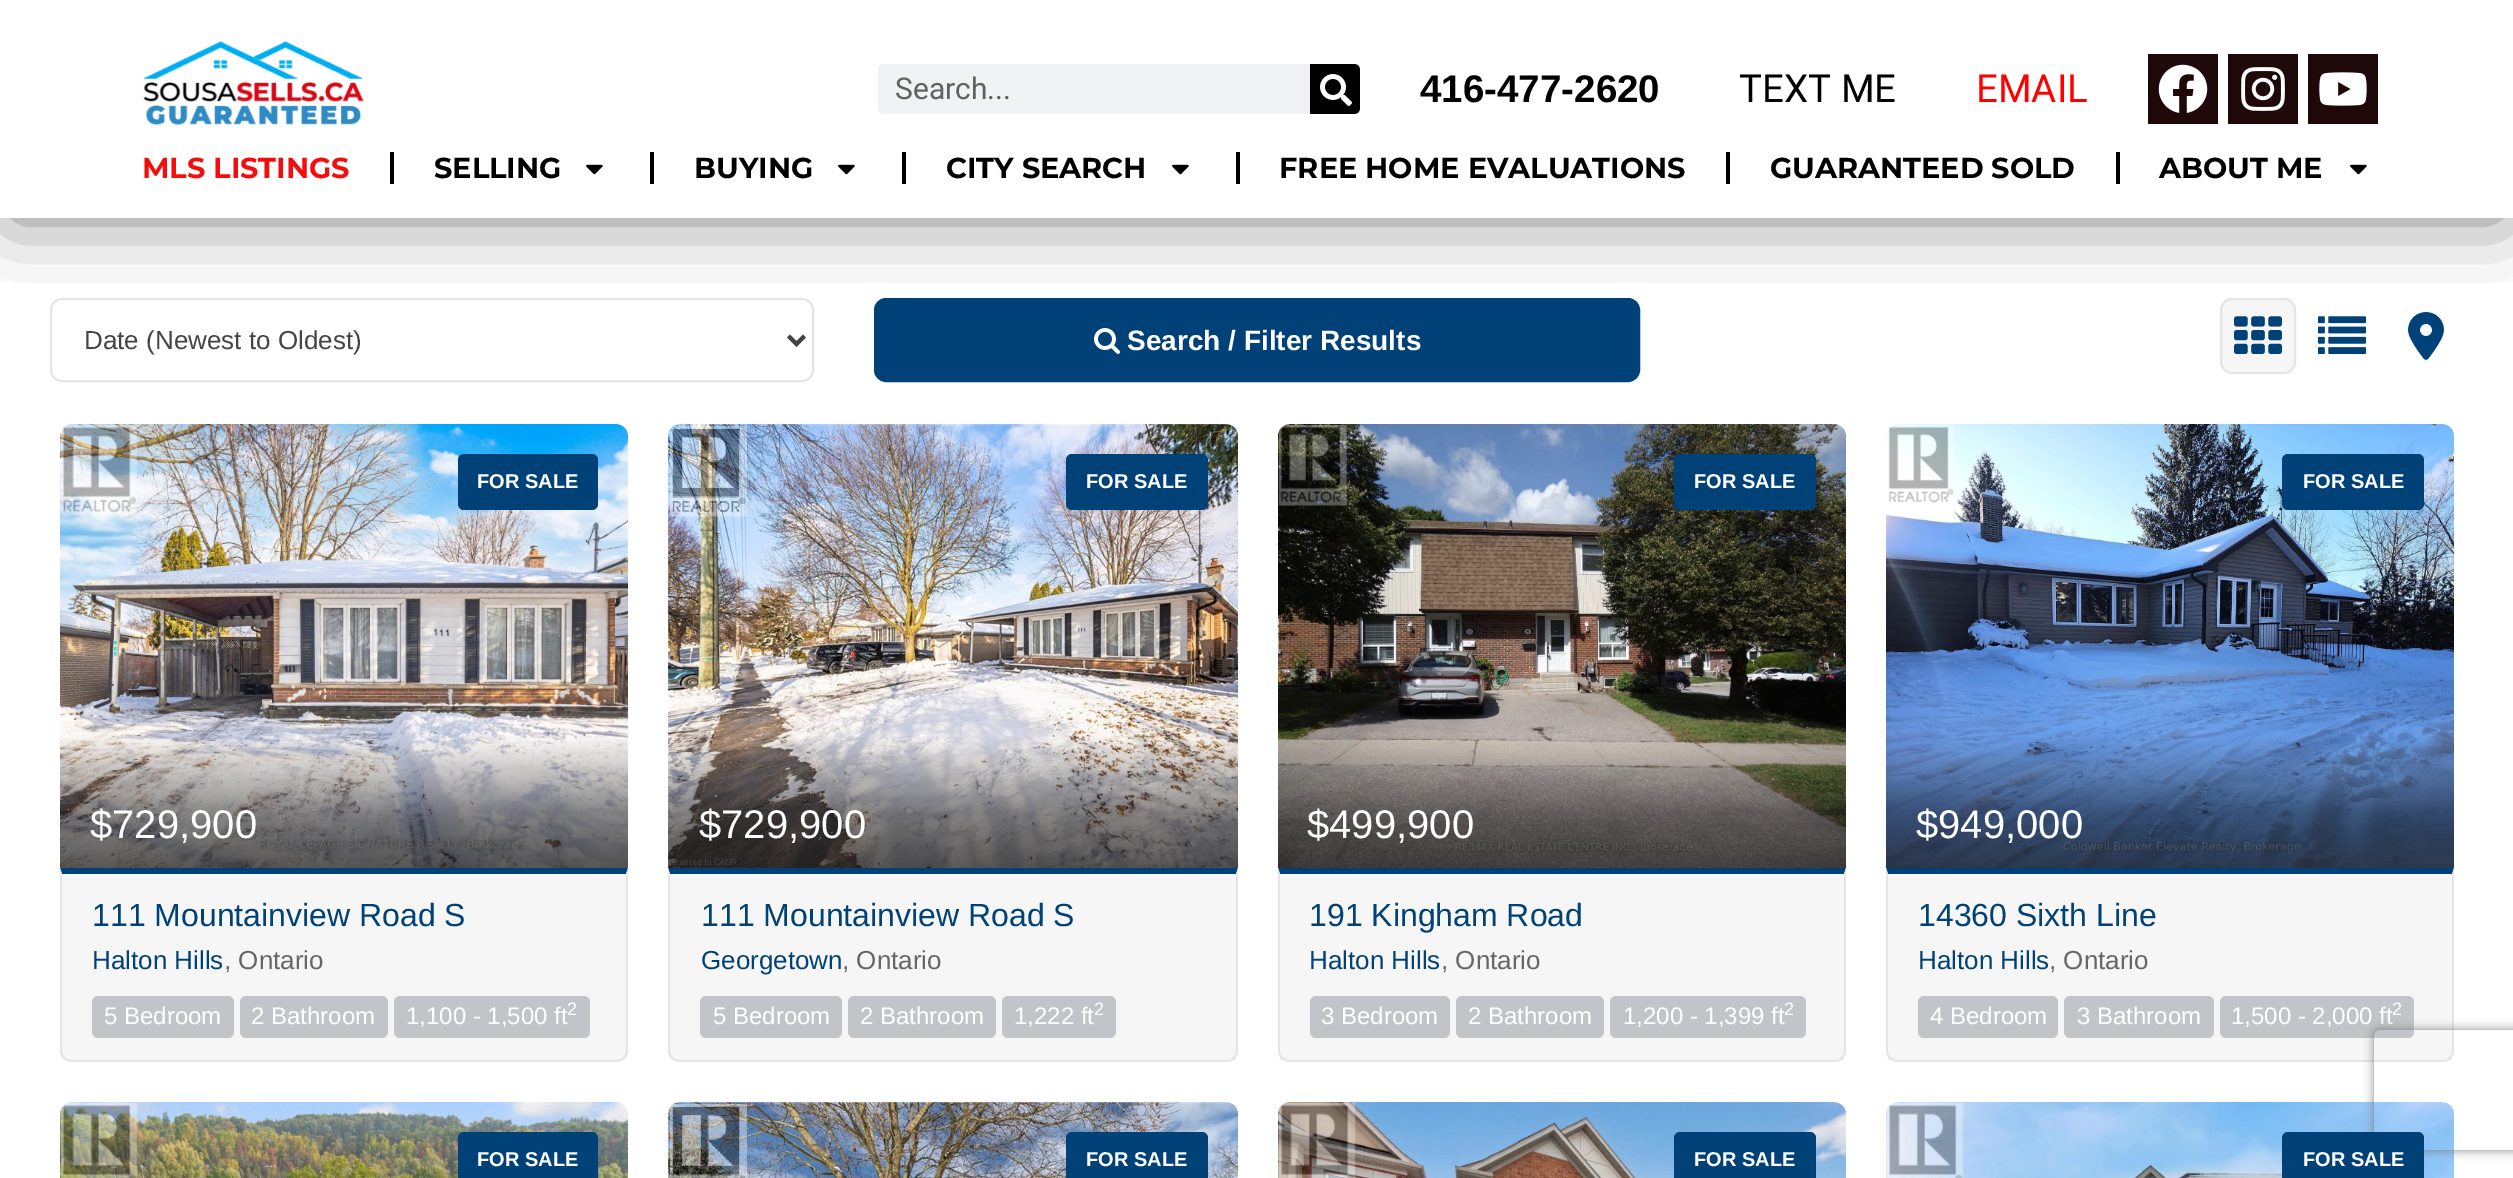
%!PS
<< /PageSize [2513 1178] /PageUsesTransparency true >> setpagedevice
/alpha { dup .setfillconstantalpha .setstrokeconstantalpha } def
/roundrect { 5 dict begin { /r /h /w /y /x } { exch def } forall
  x r add y moveto x w add y 2 copy h add r arct x w add y h add x 1 index r arct
  x y h add x y r arct x y 2 copy exch w add exch r arct closepath end } def
/shadow { 12 dict begin { /a /b /q /h /w /y /x } { exch def } forall gsave /was 0 def
  9 -2 -9 { dup b mul 4 div /e exch def 1 sub .425 mul 2.718 exch exp 1 add a .99 .min exch div /now exch def
    1 1 now sub 1 was sub div sub alpha /was now def
    w h .min e 2 mul add 0 gt { x e sub y e sub w e 2 mul add h e 2 mul add
      q e add b .6 mul add w h .min 2 div e add .min 0 .max roundrect fill } if } for grestore end } def
/picture { 5 dict begin { /h /w /y /x /name } { exch def } forall
  gsave x y translate w h scale
  w h 8 [w 0 0 h 0 0] name (r) file false 3 colorimage grestore end } def
0 .pushpdf14devicefilter
0 1178 translate 1 -1 scale
4 setmiterlimit
1 setgray
0 0 2513 1178 rectfill
0.898 setgray
2 setlinewidth
51 299 762 82 11 roundrect stroke
0 0.255 0.467 setrgbcolor
875 299 764 82 11 roundrect gsave fill grestore
stroke
(img7.rgb) 1094 328 26 26 picture
0.965 setgray
2221 299 74 74 11 roundrect gsave fill grestore
0.898 setgray
stroke
(img8.rgb) 2234 316 48 38 picture
(img9.rgb) 2318 316 48 38 picture
(img10.rgb) 2408 312 36 48 picture
gsave
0 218 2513 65 rectclip
0 setgray
10 20 2494 198 0 37 0.5 shadow
grestore
(img1.rgb) 143 40 221 85 picture
0.945 0.949 0.953 setrgbcolor
878 64 482 50 6 roundrect fill
/Roboto-Regular [30 0 0 -30 0 0] selectfont
0.376 0.38 0.38 setrgbcolor
895 99 moveto (Search...) show
0 setgray
newpath 1310 64 moveto 1354 64 lineto 1357.5 64 1360 66.5 1360 70 curveto 1360 108 lineto 1360 111.5 1357.5 114 1354 114 curveto 1310 114 lineto closepath fill
(img2.rgb) 1320 74 32 32 picture
/LiberationSans-Bold [38.5 0 0 -38.5 0 0] selectfont
1420 102 moveto (416-477-2620) show
/Roboto-Regular [38.5 0 0 -38.5 0 0] selectfont
1739 102 moveto (TEXT ME) show
1 0 0 setrgbcolor
1976 102 moveto (EMAIL) show
0.122 0.031 0.031 setrgbcolor
2148 54 70 70 rectfill
(img3.rgb) 2158 64 50 49 picture
2228 54 70 70 rectfill
(img4.rgb) 2241 67 44 44 picture
2308 54 70 70 rectfill
(img5.rgb) 2319 72 48 34 picture
/Montserrat-Bold [28.75 0 0 -28.75 0 0] selectfont
0.961 0.051 0.051 setrgbcolor
142 178 moveto (MLS LISTINGS) show
0 setgray
390 152 4 32 rectfill
434 178 moveto (SELLING) show
(img6.rgb) 586 164 17 11 picture
650 152 4 32 rectfill
694 178 moveto (BUYING) show
(img6.rgb) 838 164 17 11 picture
902 152 4 32 rectfill
946 178 moveto (CITY SEARCH) show
(img6.rgb) 1172 164 17 11 picture
1236 152 4 32 rectfill
1279 178 moveto (FREE HOME EVALUATIONS) show
1726 152 4 32 rectfill
1770 178 moveto (GUARANTEED SOLD) show
2116 152 4 32 rectfill
2159 178 moveto (ABOUT ME) show
(img6.rgb) 2350 164 17 11 picture
0.267 setgray
4 setlinewidth
newpath 788.5 336 moveto 796.5 344 lineto 804.5 336 lineto stroke
/LiberationSans-Regular [26 0 0 -26 0 0] selectfont
84 349 moveto (Date \(Newest to Oldest\)) show
/LiberationSans-Bold [28 0 0 -28 0 0] selectfont
1 setgray
1127 350 moveto (Search / Filter Results) show
(img11.rgb) 60 424 568 444 picture
0 0.255 0.467 setrgbcolor
458 454 140 56 6 roundrect fill
/LiberationSans-Bold [20 0 0 -20 0 0] selectfont
1 setgray
477 488 moveto (FOR SALE) show
/LiberationSans-Regular [40 0 0 -40 0 0] selectfont
90 838 moveto ($729,900) show
0.965 setgray
newpath 62 874 moveto 626 874 lineto 626 1050 lineto 626 1055.5 621.5 1060 616 1060 curveto 72 1060 lineto 66.5 1060 62 1055.5 62 1050 curveto closepath fill
0 0.255 0.467 setrgbcolor
newpath 60 868 moveto 62 874 lineto 626 874 lineto 628 868 lineto closepath fill
0.898 setgray
newpath 628 868 moveto 626 874 lineto 626 1050 lineto 626 1053 625 1056 623 1057 curveto 625 1059 lineto 627 1056 628 1054 628 1050 curveto closepath fill
newpath 72 1062 moveto 616 1062 lineto 620 1062 622 1061 625 1059 curveto 623 1057 lineto 622 1059 619 1060 616 1060 curveto 72 1060 lineto 69 1060 66 1059 65 1057 curveto 63 1059 lineto 66 1061 68 1062 72 1062 curveto closepath fill
newpath 62 874 moveto 60 868 lineto 60 1050 lineto 60 1054 61 1056 63 1059 curveto 65 1057 lineto 63 1056 62 1053 62 1050 curveto closepath fill
/LiberationSans-Regular [32 0 0 -32 0 0] selectfont
0 0.255 0.467 setrgbcolor
92 926 moveto (111 Mountainview Road S) show
/LiberationSans-Regular [26 0 0 -26 0 0] selectfont
92 969 moveto (Halton Hills) show
0.4 setgray
224 969 moveto (, Ontario) show
0.757 0.773 0.788 setrgbcolor
92 996 142 42 6 roundrect fill
/LiberationSans-Regular [24 0 0 -24 0 0] selectfont
1 setgray
104 1024 moveto (5 Bedroom) show
0.757 0.773 0.788 setrgbcolor
240 996 148 42 6 roundrect fill
1 setgray
251 1024 moveto (2 Bathroom) show
0.757 0.773 0.788 setrgbcolor
394 996 196 42 6 roundrect fill
1 setgray
406 1024 moveto (1,100 - 1,500 ft) show
/LiberationSans-Regular [18 0 0 -18 0 0] selectfont
567 1015 moveto (2) show
(img12.rgb) 668 424 570 444 picture
0 0.255 0.467 setrgbcolor
1066 454 142 56 6 roundrect fill
/LiberationSans-Bold [20 0 0 -20 0 0] selectfont
1 setgray
1086 488 moveto (FOR SALE) show
/LiberationSans-Regular [40 0 0 -40 0 0] selectfont
699 838 moveto ($729,900) show
0.965 setgray
newpath 670 874 moveto 1236 874 lineto 1236 1050 lineto 1236 1055.5 1231.5 1060 1226 1060 curveto 680 1060 lineto 674.5 1060 670 1055.5 670 1050 curveto closepath fill
0 0.255 0.467 setrgbcolor
newpath 668 868 moveto 670 874 lineto 1236 874 lineto 1238 868 lineto closepath fill
0.898 setgray
newpath 1238 868 moveto 1236 874 lineto 1236 1050 lineto 1236 1053 1235 1056 1233 1057 curveto 1235 1059 lineto 1237 1056 1238 1054 1238 1050 curveto closepath fill
newpath 680 1062 moveto 1226 1062 lineto 1230 1062 1232 1061 1235 1059 curveto 1233 1057 lineto 1232 1059 1229 1060 1226 1060 curveto 680 1060 lineto 677 1060 674 1059 673 1057 curveto 671 1059 lineto 674 1061 676 1062 680 1062 curveto closepath fill
newpath 670 874 moveto 668 868 lineto 668 1050 lineto 668 1054 669 1056 671 1059 curveto 673 1057 lineto 671 1056 670 1053 670 1050 curveto closepath fill
/LiberationSans-Regular [32 0 0 -32 0 0] selectfont
0 0.255 0.467 setrgbcolor
701 926 moveto (111 Mountainview Road S) show
/LiberationSans-Regular [26 0 0 -26 0 0] selectfont
701 969 moveto (Georgetown) show
0.4 setgray
842 969 moveto (, Ontario) show
0.757 0.773 0.788 setrgbcolor
700 996 142 42 6 roundrect fill
/LiberationSans-Regular [24 0 0 -24 0 0] selectfont
1 setgray
713 1024 moveto (5 Bedroom) show
0.757 0.773 0.788 setrgbcolor
848 996 148 42 6 roundrect fill
1 setgray
860 1024 moveto (2 Bathroom) show
0.757 0.773 0.788 setrgbcolor
1002 996 114 42 6 roundrect fill
1 setgray
1014 1024 moveto (1,222 ft) show
/LiberationSans-Regular [18 0 0 -18 0 0] selectfont
1094 1015 moveto (2) show
(img13.rgb) 1278 424 568 444 picture
0 0.255 0.467 setrgbcolor
1674 454 142 56 6 roundrect fill
/LiberationSans-Bold [20 0 0 -20 0 0] selectfont
1 setgray
1694 488 moveto (FOR SALE) show
/LiberationSans-Regular [40 0 0 -40 0 0] selectfont
1307 838 moveto ($499,900) show
0.965 setgray
newpath 1280 874 moveto 1844 874 lineto 1844 1050 lineto 1844 1055.5 1839.5 1060 1834 1060 curveto 1290 1060 lineto 1284.5 1060 1280 1055.5 1280 1050 curveto closepath fill
0 0.255 0.467 setrgbcolor
newpath 1278 868 moveto 1280 874 lineto 1844 874 lineto 1846 868 lineto closepath fill
0.898 setgray
newpath 1846 868 moveto 1844 874 lineto 1844 1050 lineto 1844 1053 1843 1056 1841 1057 curveto 1843 1059 lineto 1845 1056 1846 1054 1846 1050 curveto closepath fill
newpath 1290 1062 moveto 1834 1062 lineto 1838 1062 1840 1061 1843 1059 curveto 1841 1057 lineto 1840 1059 1837 1060 1834 1060 curveto 1290 1060 lineto 1287 1060 1284 1059 1283 1057 curveto 1281 1059 lineto 1284 1061 1286 1062 1290 1062 curveto closepath fill
newpath 1280 874 moveto 1278 868 lineto 1278 1050 lineto 1278 1054 1279 1056 1281 1059 curveto 1283 1057 lineto 1281 1056 1280 1053 1280 1050 curveto closepath fill
/LiberationSans-Regular [32 0 0 -32 0 0] selectfont
0 0.255 0.467 setrgbcolor
1309 926 moveto (191 Kingham Road) show
/LiberationSans-Regular [26 0 0 -26 0 0] selectfont
1309 969 moveto (Halton Hills) show
0.4 setgray
1441 969 moveto (, Ontario) show
0.757 0.773 0.788 setrgbcolor
1310 996 140 42 6 roundrect fill
/LiberationSans-Regular [24 0 0 -24 0 0] selectfont
1 setgray
1321 1024 moveto (3 Bedroom) show
0.757 0.773 0.788 setrgbcolor
1456 996 148 42 6 roundrect fill
1 setgray
1468 1024 moveto (2 Bathroom) show
0.757 0.773 0.788 setrgbcolor
1610 996 196 42 6 roundrect fill
1 setgray
1623 1024 moveto (1,200 - 1,399 ft) show
/LiberationSans-Regular [18 0 0 -18 0 0] selectfont
1784 1015 moveto (2) show
(img14.rgb) 1886 424 568 444 picture
0 0.255 0.467 setrgbcolor
2282 454 142 56 6 roundrect fill
/LiberationSans-Bold [20 0 0 -20 0 0] selectfont
1 setgray
2303 488 moveto (FOR SALE) show
/LiberationSans-Regular [40 0 0 -40 0 0] selectfont
1916 838 moveto ($949,000) show
0.965 setgray
newpath 1888 874 moveto 2452 874 lineto 2452 1050 lineto 2452 1055.5 2447.5 1060 2442 1060 curveto 1898 1060 lineto 1892.5 1060 1888 1055.5 1888 1050 curveto closepath fill
0 0.255 0.467 setrgbcolor
newpath 1886 868 moveto 1888 874 lineto 2452 874 lineto 2454 868 lineto closepath fill
0.898 setgray
newpath 2454 868 moveto 2452 874 lineto 2452 1050 lineto 2452 1053 2451 1056 2449 1057 curveto 2451 1059 lineto 2453 1056 2454 1054 2454 1050 curveto closepath fill
newpath 1898 1062 moveto 2442 1062 lineto 2446 1062 2448 1061 2451 1059 curveto 2449 1057 lineto 2448 1059 2445 1060 2442 1060 curveto 1898 1060 lineto 1895 1060 1892 1059 1891 1057 curveto 1889 1059 lineto 1892 1061 1894 1062 1898 1062 curveto closepath fill
newpath 1888 874 moveto 1886 868 lineto 1886 1050 lineto 1886 1054 1887 1056 1889 1059 curveto 1891 1057 lineto 1889 1056 1888 1053 1888 1050 curveto closepath fill
/LiberationSans-Regular [32 0 0 -32 0 0] selectfont
0 0.255 0.467 setrgbcolor
1918 926 moveto (14360 Sixth Line) show
/LiberationSans-Regular [26 0 0 -26 0 0] selectfont
1918 969 moveto (Halton Hills) show
0.4 setgray
2049 969 moveto (, Ontario) show
0.757 0.773 0.788 setrgbcolor
1918 996 140 42 6 roundrect fill
/LiberationSans-Regular [24 0 0 -24 0 0] selectfont
1 setgray
1930 1024 moveto (4 Bedroom) show
0.757 0.773 0.788 setrgbcolor
2064 996 150 42 6 roundrect fill
1 setgray
2077 1024 moveto (3 Bathroom) show
0.757 0.773 0.788 setrgbcolor
2220 996 194 42 6 roundrect fill
1 setgray
2231 1024 moveto (1,500 - 2,000 ft) show
/LiberationSans-Regular [18 0 0 -18 0 0] selectfont
2392 1015 moveto (2) show
(img15.rgb) 60 1102 568 76 picture
0 0.255 0.467 setrgbcolor
458 1132 140 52 6 roundrect fill
/LiberationSans-Bold [20 0 0 -20 0 0] selectfont
1 setgray
477 1166 moveto (FOR SALE) show
(img16.rgb) 668 1102 570 76 picture
0 0.255 0.467 setrgbcolor
1066 1132 142 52 6 roundrect fill
1 setgray
1086 1166 moveto (FOR SALE) show
(img17.rgb) 1278 1102 568 76 picture
0 0.255 0.467 setrgbcolor
1674 1132 142 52 6 roundrect fill
1 setgray
1694 1166 moveto (FOR SALE) show
(img18.rgb) 1886 1102 568 76 picture
gsave
newpath 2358 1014 moveto 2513 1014 lineto 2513 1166 lineto 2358 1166 lineto closepath 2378 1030 moveto 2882 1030 lineto 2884 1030 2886 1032 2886 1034 curveto 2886 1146 lineto 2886 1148 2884 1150 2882 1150 curveto 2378 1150 lineto 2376 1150 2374 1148 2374 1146 curveto 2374 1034 lineto 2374 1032 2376 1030 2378 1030 curveto closepath eoclip newpath
0.502 setgray
2374 1030 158 120 4 5 1 shadow
grestore
0 0.255 0.467 setrgbcolor
2282 1132 142 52 6 roundrect fill
1 setgray
2303 1166 moveto (FOR SALE) show
.poppdf14devicefilter showpage
